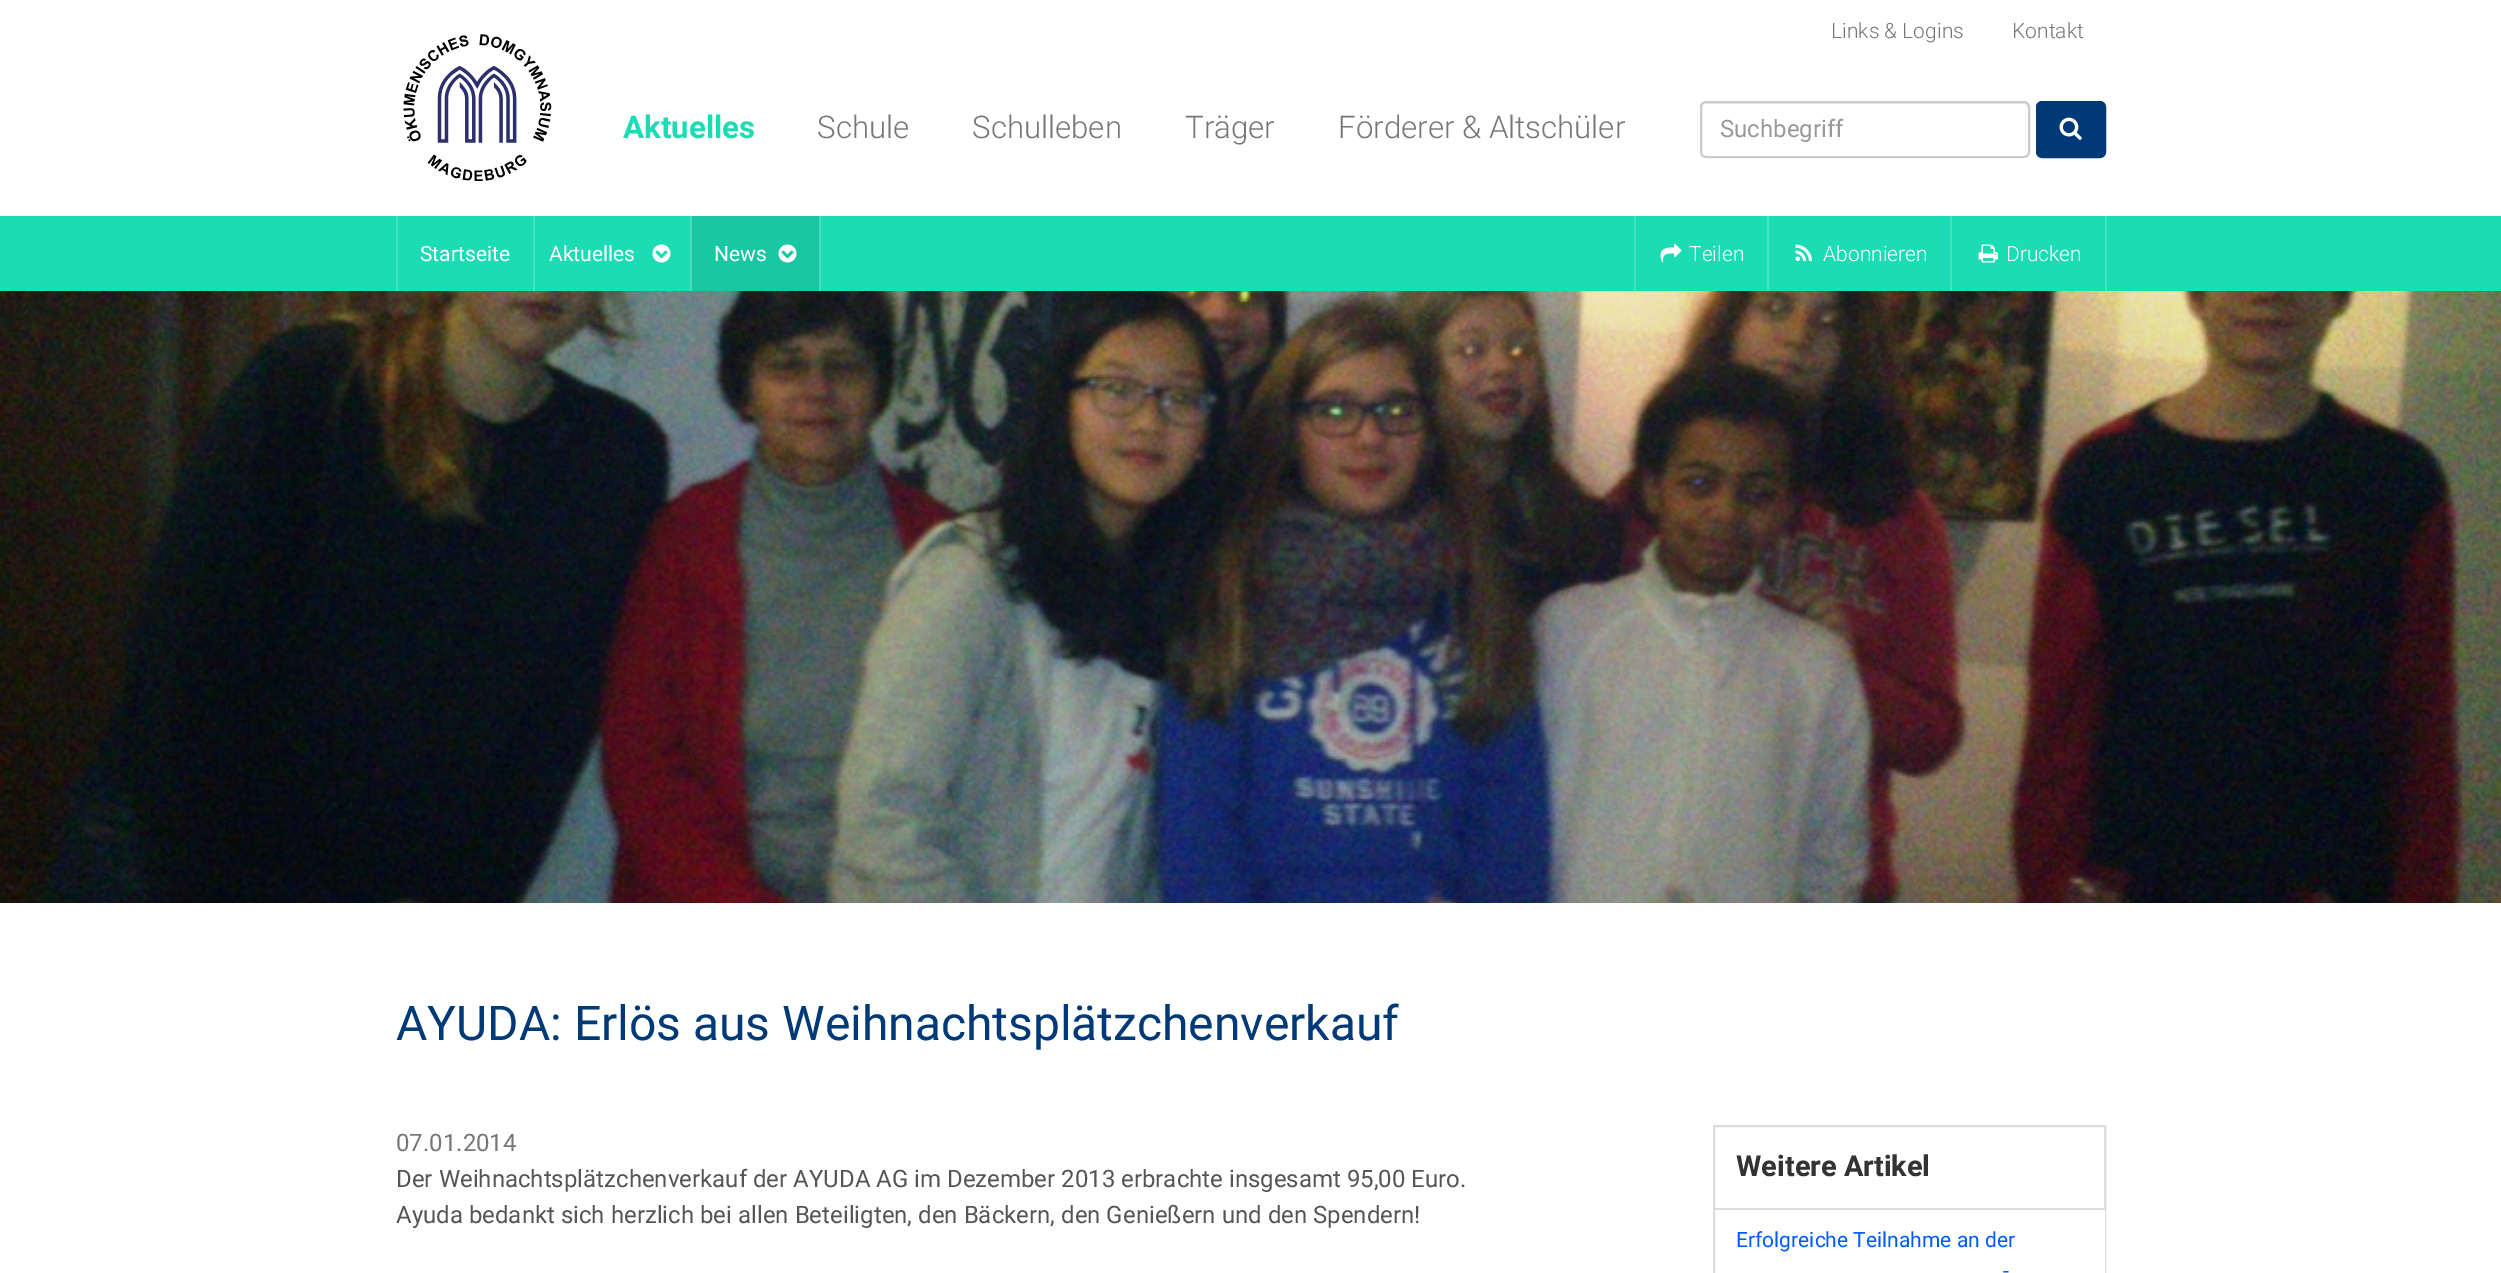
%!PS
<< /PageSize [2501 1273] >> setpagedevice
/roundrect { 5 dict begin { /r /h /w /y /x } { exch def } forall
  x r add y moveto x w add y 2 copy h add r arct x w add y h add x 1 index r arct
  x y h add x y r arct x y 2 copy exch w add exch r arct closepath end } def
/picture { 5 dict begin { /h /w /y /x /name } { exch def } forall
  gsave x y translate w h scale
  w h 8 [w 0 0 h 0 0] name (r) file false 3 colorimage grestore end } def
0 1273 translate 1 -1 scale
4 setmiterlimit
1 setgray
0 0 2501 1273 rectfill
(img1.rgb) 403 34 149 147 picture
/Roboto-Light [21 0 0 -21 0 0] selectfont
0.467 setgray
1831 38 moveto (Links & Logins) show
2012 38 moveto (Kontakt) show
/Roboto-Bold [31.25 0 0 -31.25 0 0] selectfont
0.11 0.863 0.71 setrgbcolor
623 138 moveto (Aktuelles) show
/Roboto-Light [31.25 0 0 -31.25 0 0] selectfont
0.467 setgray
817 138 moveto (Schule) show
972 138 moveto (Schulleben) show
1185 138 moveto (Träger) show
1338 138 moveto (Förderer & Altschüler) show
0.925 setgray
newpath 1706 104 moveto 2024 104 lineto 2026 104 2028 106 2028 108 curveto 2028 105 2026 102 2023 102 curveto 1706 102 lineto 1703 102 1701 105 1701 108 curveto 1701 106 1703 104 1706 104 curveto closepath fill
0.8 setgray
2 setlinewidth
1701 102 328 55 5 roundrect stroke
/Roboto-Regular [24 0 0 -24 0 0] selectfont
0.6 setgray
1720 137 moveto (Suchbegriff) show
0 0.224 0.471 setrgbcolor
2037 102 68 55 5 roundrect gsave fill grestore
stroke
(img2.rgb) 2059 117 23 23 picture
0.11 0.863 0.71 setrgbcolor
0 216 2501 75 rectfill
0.286 0.89 0.769 setrgbcolor
396 216 2 75 rectfill
/Roboto-Regular [21 0 0 -21 0 0] selectfont
1 setgray
420 261 moveto (Startseite) show
0.286 0.89 0.769 setrgbcolor
533 216 2 75 rectfill
1 setgray
549 261 moveto (Aktuelles) show
(img3.rgb) 652 244 19 19 picture
0.286 0.855 0.741 setrgbcolor
819 216 2 75 rectfill
690 216 2 75 rectfill
0.102 0.78 0.639 setrgbcolor
692 216 127 75 rectfill
1 setgray
714 261 moveto (News) show
(img4.rgb) 778 244 19 19 picture
0.286 0.89 0.769 setrgbcolor
1634 216 2 75 rectfill
(img5.rgb) 1660 243 22 20 picture
/Roboto-Light [21 0 0 -21 0 0] selectfont
1 setgray
1689 261 moveto (Teilen) show
0.286 0.89 0.769 setrgbcolor
1767 216 2 75 rectfill
(img6.rgb) 1795 244 17 17 picture
1 setgray
1823 261 moveto (Abonnieren) show
0.286 0.89 0.769 setrgbcolor
2105 216 2 75 rectfill
1950 216 2 75 rectfill
(img7.rgb) 1978 244 20 19 picture
1 setgray
2006 261 moveto (Drucken) show
(img8.rgb) 0 291 2501 612 picture
/Roboto-Regular [48 0 0 -48 0 0] selectfont
0 0.224 0.471 setrgbcolor
396 1040 moveto (AYUDA: Erlös aus Weihnachtsplätzchenverkauf) show
/Roboto-Regular [24 0 0 -24 0 0] selectfont
0.467 setgray
396 1151 moveto (07.01.2014) show
0.333 setgray
396 1187 moveto (Der Weihnachtsplätzchenverkauf der AYUDA AG im Dezember 2013 erbrachte insgesamt 95,00 Euro.) show
396 1223 moveto (Ayuda bedankt sich herzlich bei allen Beteiligten, den Bäckern, den Genießern und den Spendern!) show
0.867 setgray
1714 1126 391 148 rectstroke
/Roboto-Bold [29 0 0 -29 0 0] selectfont
0.2 setgray
1736 1176 moveto (Weitere Artikel) show
1 setgray
2104 1210 1 63 rectfill
0.867 setgray
1715 1208 390 2 rectfill
/Roboto-Regular [21 0 0 -21 0 0] selectfont
0 0.353 1 setrgbcolor
1736 1247 moveto (Erfolgreiche Teilnahme an der) show
2003 1278 moveto (-) show
showpage
